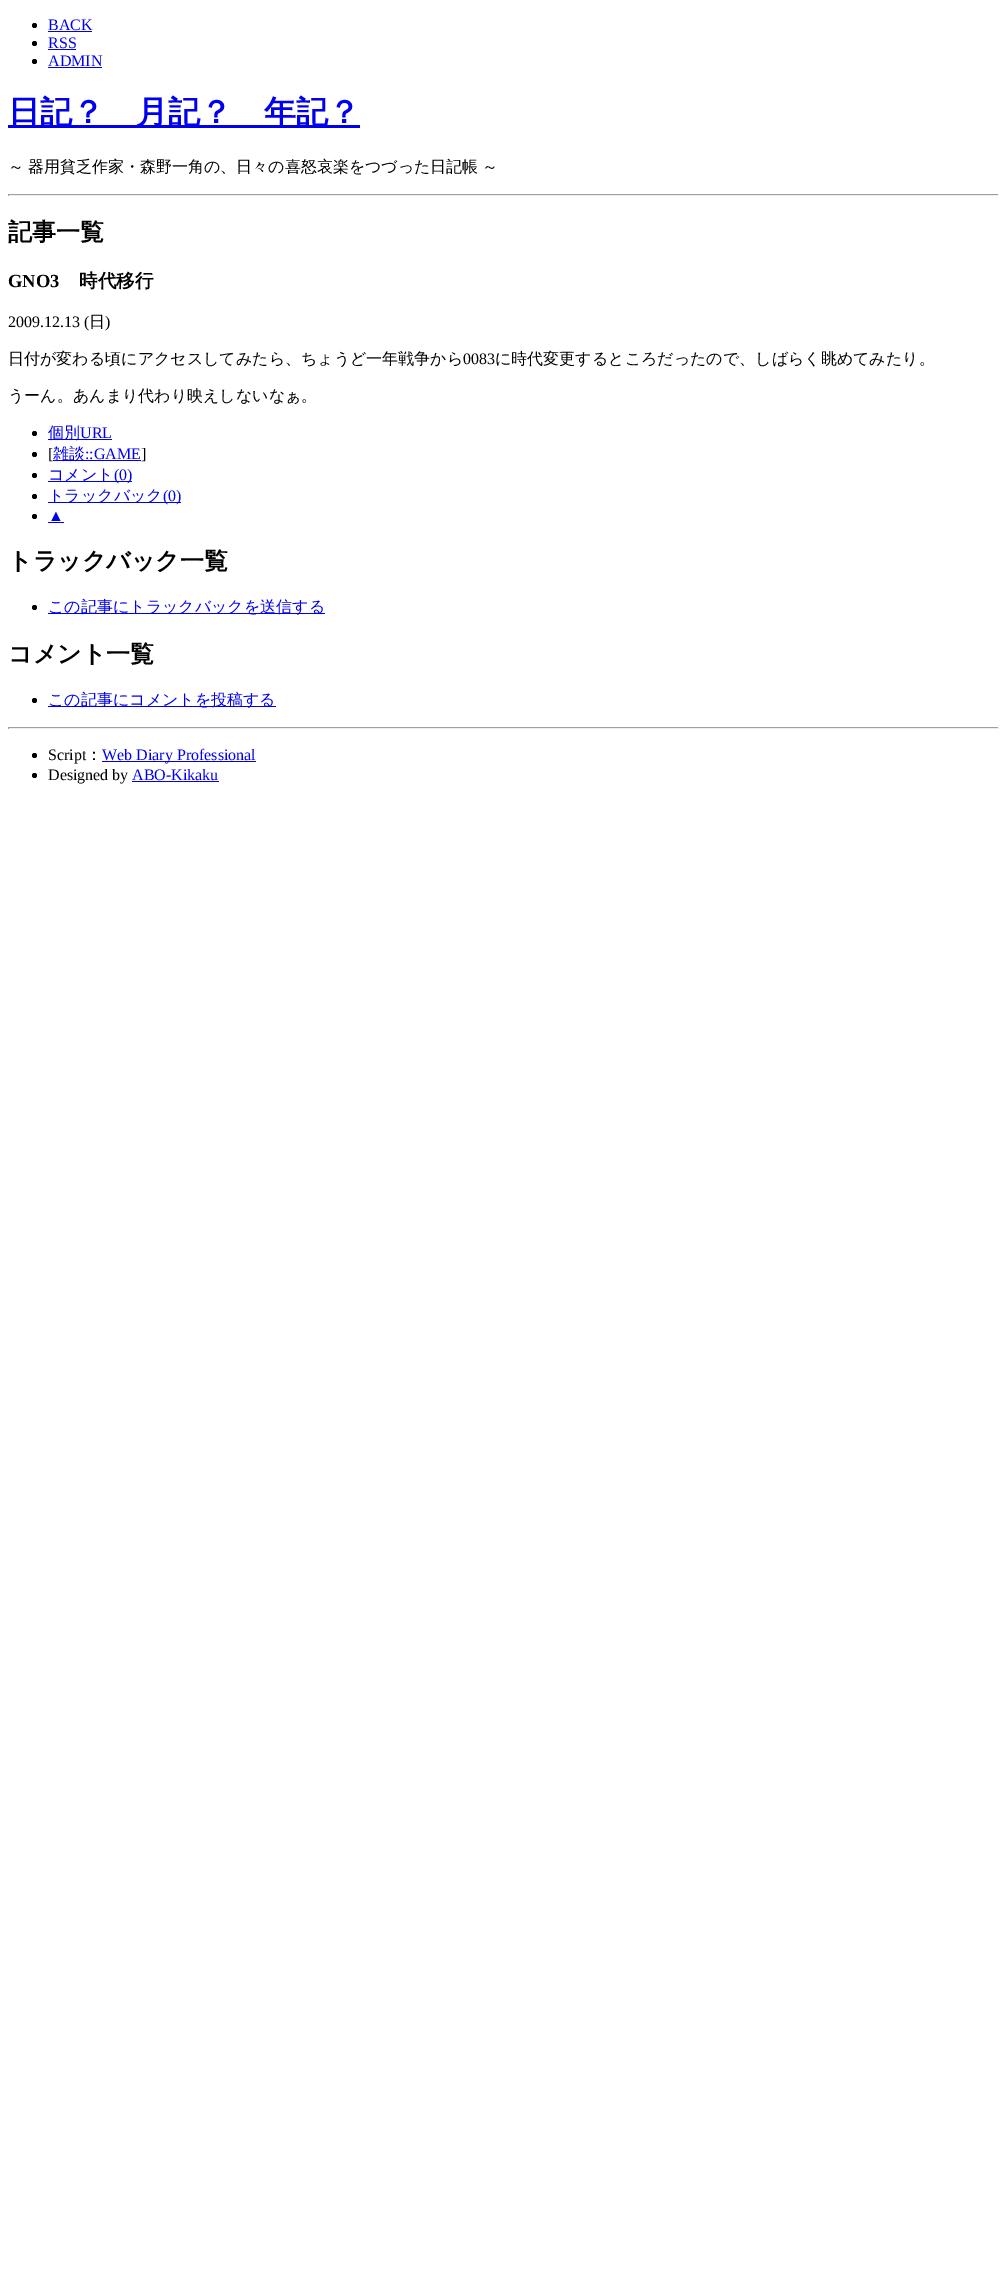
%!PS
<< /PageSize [1007 2296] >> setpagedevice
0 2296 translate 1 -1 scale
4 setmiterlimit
1 setgray
0 0 1007 2296 rectfill
0 setgray
newpath 34.5 25.5 2.5 0 360 arc closepath fill
/LiberationSerif-Regular [16 0 0 -16 0 0] selectfont
0 0 0.933 setrgbcolor
48 30 moveto (BACK) show
48 31 44 1 rectfill
0 setgray
newpath 34.5 43.5 2.5 0 360 arc closepath fill
0 0 0.933 setrgbcolor
48 48 moveto (RSS) show
48 49 28 1 rectfill
0 setgray
newpath 34.5 61.5 2.5 0 360 arc closepath fill
0 0 0.933 setrgbcolor
48 66 moveto (ADMIN) show
48 67 54 1 rectfill
8 125 352 3 rectfill
/WenQuanYiZenHei-Bold [32 0 0 -32 0 0] selectfont
8 123 moveto (日記？　月記？　年記？) show
/WenQuanYiZenHei-Medium [16 0 0 -16 0 0] selectfont
0 setgray
8 172 moveto -1 0 32 (～ 器用貧乏作家・森野一角の、日々の喜怒哀楽をつづった日記帳 ～) widthshow
0.624 setgray
8 194 991 1 rectfill
0.933 setgray
998 194 1 2 rectfill
8 195 991 1 rectfill
0.624 setgray
8 194 1 2 rectfill
/WenQuanYiZenHei-Bold [24 0 0 -24 0 0] selectfont
0 setgray
8 240 moveto (記事一覧) show
/LiberationSerif-Bold [18.5 0 0 -18.5 0 0] selectfont
8 287 moveto (GNO3) show
/WenQuanYiZenHei-Bold [18.5 0 0 -18.5 0 0] selectfont
79 287 moveto (時代移行) show
/LiberationSerif-Regular [16 0 0 -16 0 0] selectfont
8 327 moveto (2009.12.13 \() show
/WenQuanYiZenHei-Medium [16 0 0 -16 0 0] selectfont
89 327 moveto (日) show
/LiberationSerif-Regular [16 0 0 -16 0 0] selectfont
105 327 moveto (\)) show
/WenQuanYiZenHei-Medium [16 0 0 -16 0 0] selectfont
8 364 moveto (日付が変わる頃にアクセスしてみたら、ちょうど一年戦争から) show
/LiberationSerif-Regular [16 0 0 -16 0 0] selectfont
463 364 moveto (0083) show
/WenQuanYiZenHei-Medium [16 0 0 -16 0 0] selectfont
495 364 moveto (に時代変更するところだったので、しばらく眺めてみたり。) show
8 401 moveto (うーん。あんまり代わり映えしないなぁ。) show
newpath 34.5 433.5 2.5 0 360 arc closepath fill
0 0 0.933 setrgbcolor
48 439 64 1 rectfill
48 438 moveto (個別) show
/LiberationSerif-Regular [16 0 0 -16 0 0] selectfont
80 438 moveto (URL) show
0 setgray
newpath 34.5 454.5 2.5 0 360 arc closepath fill
48 459 moveto ([) show
0 0 0.933 setrgbcolor
53 460 88 1 rectfill
/WenQuanYiZenHei-Medium [16 0 0 -16 0 0] selectfont
53 459 moveto (雑談) show
/LiberationSerif-Regular [16 0 0 -16 0 0] selectfont
85 459 moveto (::GAME) show
0 setgray
141 459 moveto (]) show
newpath 34.5 475.5 2.5 0 360 arc closepath fill
0 0 0.933 setrgbcolor
48 481 84 1 rectfill
/WenQuanYiZenHei-Medium [16 0 0 -16 0 0] selectfont
48 480 moveto (コメント) show
/LiberationSerif-Regular [16 0 0 -16 0 0] selectfont
114 480 moveto (\(0\)) show
0 setgray
newpath 34.5 496.5 2.5 0 360 arc closepath fill
0 0 0.933 setrgbcolor
48 502 133 1 rectfill
/WenQuanYiZenHei-Medium [16 0 0 -16 0 0] selectfont
48 501 moveto (トラックバック) show
/LiberationSerif-Regular [16 0 0 -16 0 0] selectfont
163 501 moveto (\(0\)) show
0 setgray
newpath 34.5 516.5 2.5 0 360 arc closepath fill
0 0 0.933 setrgbcolor
48 521 moveto (▲) show
48 522 16 1 rectfill
/WenQuanYiZenHei-Bold [24 0 0 -24 0 0] selectfont
0 setgray
8 569 moveto (トラックバック一覧) show
newpath 34.5 607.5 2.5 0 360 arc closepath fill
0 0 0.933 setrgbcolor
48 613 277 1 rectfill
/WenQuanYiZenHei-Medium [16 0 0 -16 0 0] selectfont
48 612 moveto (この記事にトラックバックを送信する) show
/WenQuanYiZenHei-Bold [24 0 0 -24 0 0] selectfont
0 setgray
8 662 moveto (コメント一覧) show
newpath 34.5 700.5 2.5 0 360 arc closepath fill
0 0 0.933 setrgbcolor
48 706 228 1 rectfill
/WenQuanYiZenHei-Medium [16 0 0 -16 0 0] selectfont
48 705 moveto (この記事にコメントを投稿する) show
0.624 setgray
8 727 991 1 rectfill
0.933 setgray
998 727 1 2 rectfill
8 728 991 1 rectfill
0.624 setgray
8 727 1 2 rectfill
0 setgray
newpath 34.5 755.5 2.5 0 360 arc closepath fill
/LiberationSerif-Regular [16 0 0 -16 0 0] selectfont
48 760 moveto (Script) show
/WenQuanYiZenHei-Medium [16 0 0 -16 0 0] selectfont
86 760 moveto (：) show
0 0 0.933 setrgbcolor
102 761 154 1 rectfill
/LiberationSerif-Regular [16 0 0 -16 0 0] selectfont
102 760 moveto (Web Diary Professional) show
0 setgray
newpath 34.5 775.5 2.5 0 360 arc closepath fill
48 780 moveto (Designed by) show
0 0 0.933 setrgbcolor
132 780 moveto (ABO-Kikaku) show
132 781 87 1 rectfill
showpage
